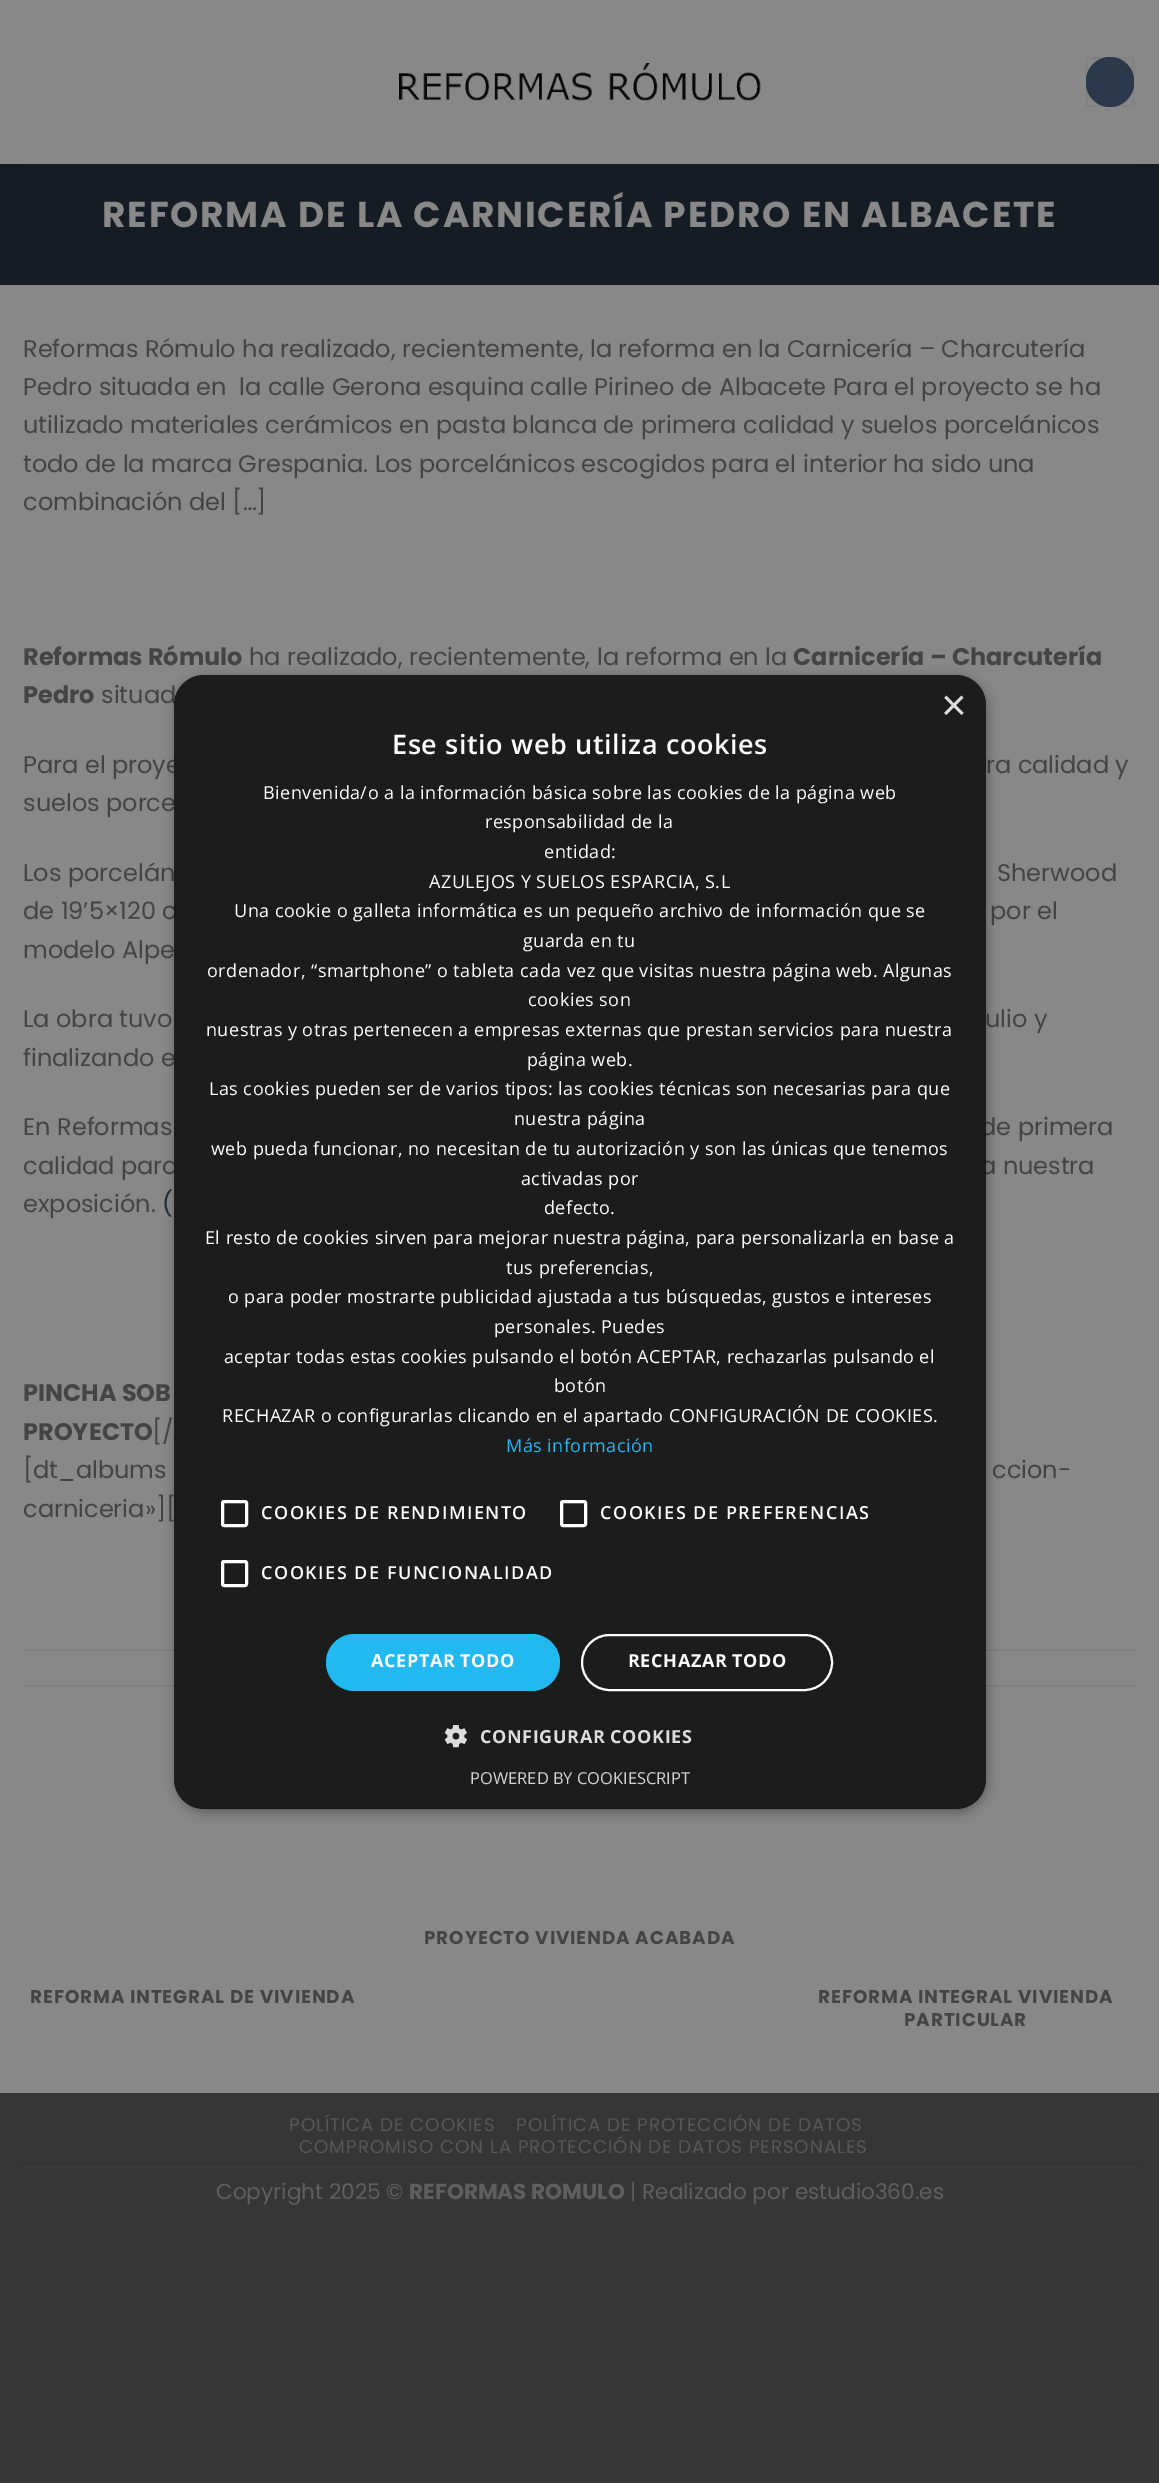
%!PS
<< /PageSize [1159 2483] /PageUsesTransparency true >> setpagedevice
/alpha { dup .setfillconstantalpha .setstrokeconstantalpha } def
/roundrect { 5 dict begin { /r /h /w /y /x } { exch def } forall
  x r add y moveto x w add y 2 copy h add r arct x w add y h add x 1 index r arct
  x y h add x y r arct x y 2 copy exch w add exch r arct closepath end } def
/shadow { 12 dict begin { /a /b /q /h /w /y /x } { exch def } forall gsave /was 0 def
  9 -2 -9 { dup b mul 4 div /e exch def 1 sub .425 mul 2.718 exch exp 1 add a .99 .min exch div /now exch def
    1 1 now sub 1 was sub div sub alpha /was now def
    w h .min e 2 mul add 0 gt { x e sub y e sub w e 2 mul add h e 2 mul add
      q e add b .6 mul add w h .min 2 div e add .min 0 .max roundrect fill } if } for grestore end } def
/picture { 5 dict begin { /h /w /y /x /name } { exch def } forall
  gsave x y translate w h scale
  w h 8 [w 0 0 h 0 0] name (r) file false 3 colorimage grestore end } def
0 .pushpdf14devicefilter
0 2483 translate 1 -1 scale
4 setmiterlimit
0.212 setgray
0 0 1159 2483 rectfill
0.533 setgray
0 0 1159 2093 rectfill
(img1.rgb) 399 63 362 38 picture
0.169 0.224 0.294 setrgbcolor
1086 57 48 50 24 roundrect fill
0.05 alpha
0.035 setgray
2 setlinewidth
1087 58 46 48 rectstroke
1 alpha
0.086 0.11 0.137 setrgbcolor
0 164 1159 121 rectfill
0.102 0.122 0.145 setrgbcolor
23 164 1114 2 rectfill
/Poppins-Bold [36 0 0 -36 0 0] selectfont
0.533 setgray
102 227 moveto 1.8 0 (REFORMA DE LA CARNICERÍA PEDRO EN ALBACETE) ashow
/Poppins-Regular [24 0 0 -24 0 0] selectfont
0.267 setgray
23 357 moveto (Reformas Rómulo ha realizado, recientemente, la reforma en la Carnicería – Charcutería) show
23 395 moveto (Pedro situada en  la calle Gerona esquina calle Pirineo de Albacete Para el proyecto se ha) show
23 433 moveto (utilizado materiales cerámicos en pasta blanca de primera calidad y suelos porcelánicos) show
23 472 moveto (todo de la marca Grespania. Los porcelánicos escogidos para el interior ha sido una) show
23 510 moveto (combinación del […]) show
/Poppins-Bold [24 0 0 -24 0 0] selectfont
23 665 moveto (Reformas Rómulo) show
/Poppins-Regular [24 0 0 -24 0 0] selectfont
249 665 moveto (ha realizado, recientemente, la reforma en la) show
/Poppins-Bold [24 0 0 -24 0 0] selectfont
793 665 moveto (Carnicería – Charcutería) show
23 703 moveto (Pedro) show
/Poppins-Regular [24 0 0 -24 0 0] selectfont
101 703 moveto (situad) show
23 773 moveto (Para el proye) show
986 773 moveto (ra calidad y) show
23 811 moveto (suelos porce) show
23 881 moveto (Los porcelán) show
997 881 moveto (Sherwood) show
23 919 moveto (de 19’5×120 c) show
990 919 moveto (por el) show
23 958 moveto (modelo Alpe) show
23 1027 moveto (La obra tuvo) show
985 1027 moveto (ulio y) show
23 1066 moveto (finalizando e) show
23 1135 moveto (En Reformas) show
980 1135 moveto (de primera) show
23 1174 moveto (calidad para) show
980 1174 moveto (a nuestra) show
23 1212 moveto (exposición.) show
0.133 0.176 0.227 setrgbcolor
162 1212 moveto (\() show
/Poppins-Bold [24 0 0 -24 0 0] selectfont
0.267 setgray
23 1401 moveto (PINCHA SOB) show
23 1440 moveto (PROYECTO) show
/Poppins-Regular [24 0 0 -24 0 0] selectfont
152 1440 moveto ([/) show
23 1478 moveto ([dt_albums) show
992 1478 moveto (ccion-) show
23 1517 moveto (carniceria»][) show
0.498 setgray
23 1649 1114 2 rectfill
23 1685 1114 2 rectfill
/Poppins-Bold [18.35 0 0 -18.35 0 0] selectfont
0.267 setgray
424 1944 moveto 0.9 0 (PROYECTO VIVIENDA ACABADA) ashow
30 2003 moveto 0.9 0 (REFORMA INTEGRAL DE VIVIENDA) ashow
818 2003 moveto 0.9 0 (REFORMA INTEGRAL VIVIENDA) ashow
904 2026 moveto 0.9 0 (PARTICULAR) ashow
0.231 setgray
23 2166 1114 2 rectfill
/Poppins-Regular [18.35 0 0 -18.35 0 0] selectfont
0.341 setgray
289 2131 moveto 0.9 0 (POLÍTICA DE COOKIES) ashow
516 2131 moveto 0.9 0 (POLÍTICA DE PROTECCIÓN DE DATOS) ashow
299 2153 moveto 0.9 0 (COMPROMISO CON LA PROTECCIÓN DE DATOS PERSONALES) ashow
/Poppins-Regular [21.6 0 0 -21.6 0 0] selectfont
0.373 setgray
216 2199 moveto (Copyright 2025 ©) show
/Poppins-Bold [21.6 0 0 -21.6 0 0] selectfont
409 2199 moveto (REFORMAS ROMULO) show
/Poppins-Regular [21.6 0 0 -21.6 0 0] selectfont
630 2199 moveto (| Realizado por estudio360.es) show
0 setgray
176 678 811 1134 30 6 0.35 shadow
0.11 setgray
174 675 812 1134 30 roundrect fill
/LiberationSans-Regular [44 0 0 -44 0 0] selectfont
0.867 setgray
941 720 moveto (×) show
/OpenSans-SemiBold [27 0 0 -27 0 0] selectfont
1 setgray
392 754 moveto 0.6 0 (Ese sitio web utiliza cookies) ashow
/OpenSans-Regular [18 0 0 -18 0 0] selectfont
263 799 moveto 0.45 0 (Bienvenida/o a la información básica sobre las cookies de la página web) ashow
485 828 moveto 0.45 0 (responsabilidad de la) ashow
544 858 moveto 0.45 0 (entidad:) ashow
429 888 moveto 0.45 0 (AZULEJOS Y SUELOS ESPARCIA, S.L) ashow
234 917 moveto 0.45 0 (Una cookie o galleta informática es un pequeño archivo de información que se) ashow
523 947 moveto 0.45 0 (guarda en tu) ashow
207 977 moveto 0.45 0 (ordenador, “smartphone” o tableta cada vez que visitas nuestra página web. Algunas) ashow
528 1006 moveto 0.45 0 (cookies son) ashow
206 1036 moveto 0.45 0 (nuestras y otras pertenecen a empresas externas que prestan servicios para nuestra) ashow
527 1066 moveto 0.45 0 (página web.) ashow
209 1095 moveto 0.45 0 (Las cookies pueden ser de varios tipos: las cookies técnicas son necesarias para que) ashow
514 1125 moveto 0.45 0 (nuestra página) ashow
211 1155 moveto 0.45 0 (web pueda funcionar, no necesitan de tu autorización y son las únicas que tenemos) ashow
521 1185 moveto 0.45 0 (activadas por) ashow
544 1214 moveto 0.45 0 (defecto.) ashow
205 1244 moveto 0.45 0 (El resto de cookies sirven para mejorar nuestra página, para personalizarla en base a) ashow
506 1274 moveto 0.45 0 (tus preferencias,) ashow
228 1303 moveto 0.45 0 (o para poder mostrarte publicidad ajustada a tus búsquedas, gustos e intereses) ashow
494 1333 moveto 0.45 0 (personales. Puedes) ashow
224 1363 moveto 0.45 0 (aceptar todas estas cookies pulsando el botón ACEPTAR, rechazarlas pulsando el) ashow
554 1392 moveto 0.45 0 (botón) ashow
222 1422 moveto 0.45 0 (RECHAZAR o configurarlas clicando en el apartado CONFIGURACIÓN DE COOKIES.) ashow
0.133 0.722 0.941 setrgbcolor
506 1452 moveto 0.45 0 (Más información) ashow
1 setgray
3 setlinewidth
222.5 1501.5 24 24 1.5 roundrect stroke
/OpenSans-SemiBold [18 0 0 -18 0 0] selectfont
261 1519 moveto 1.5 0 (COOKIES DE RENDIMIENTO) ashow
561.5 1501.5 24 24 1.5 roundrect stroke
600 1519 moveto 1.5 0 (COOKIES DE PREFERENCIAS) ashow
222.5 1561.5 24 24 1.5 roundrect stroke
261 1579 moveto 1.5 0 (COOKIES DE FUNCIONALIDAD) ashow
0.133 0.722 0.941 setrgbcolor
326 1634 234 57 28.5 roundrect fill
/OpenSans-Bold [18 0 0 -18 0 0] selectfont
1 setgray
371 1667 moveto 0.6 0 (ACEPTAR TODO) ashow
2 setlinewidth
582 1635 250 55 27.5 roundrect stroke
628 1667 moveto 0.6 0 (RECHAZAR TODO) ashow
(img2.rgb) 444 1725 23 23 picture
0.867 setgray
480 1743 moveto 0.6 0 (CONFIGURAR COOKIES) ashow
/OpenSans-Regular [16.5 0 0 -16.5 0 0] selectfont
0.824 setgray
470 1784 moveto (POWERED BY COOKIESCRIPT) show
.poppdf14devicefilter showpage
